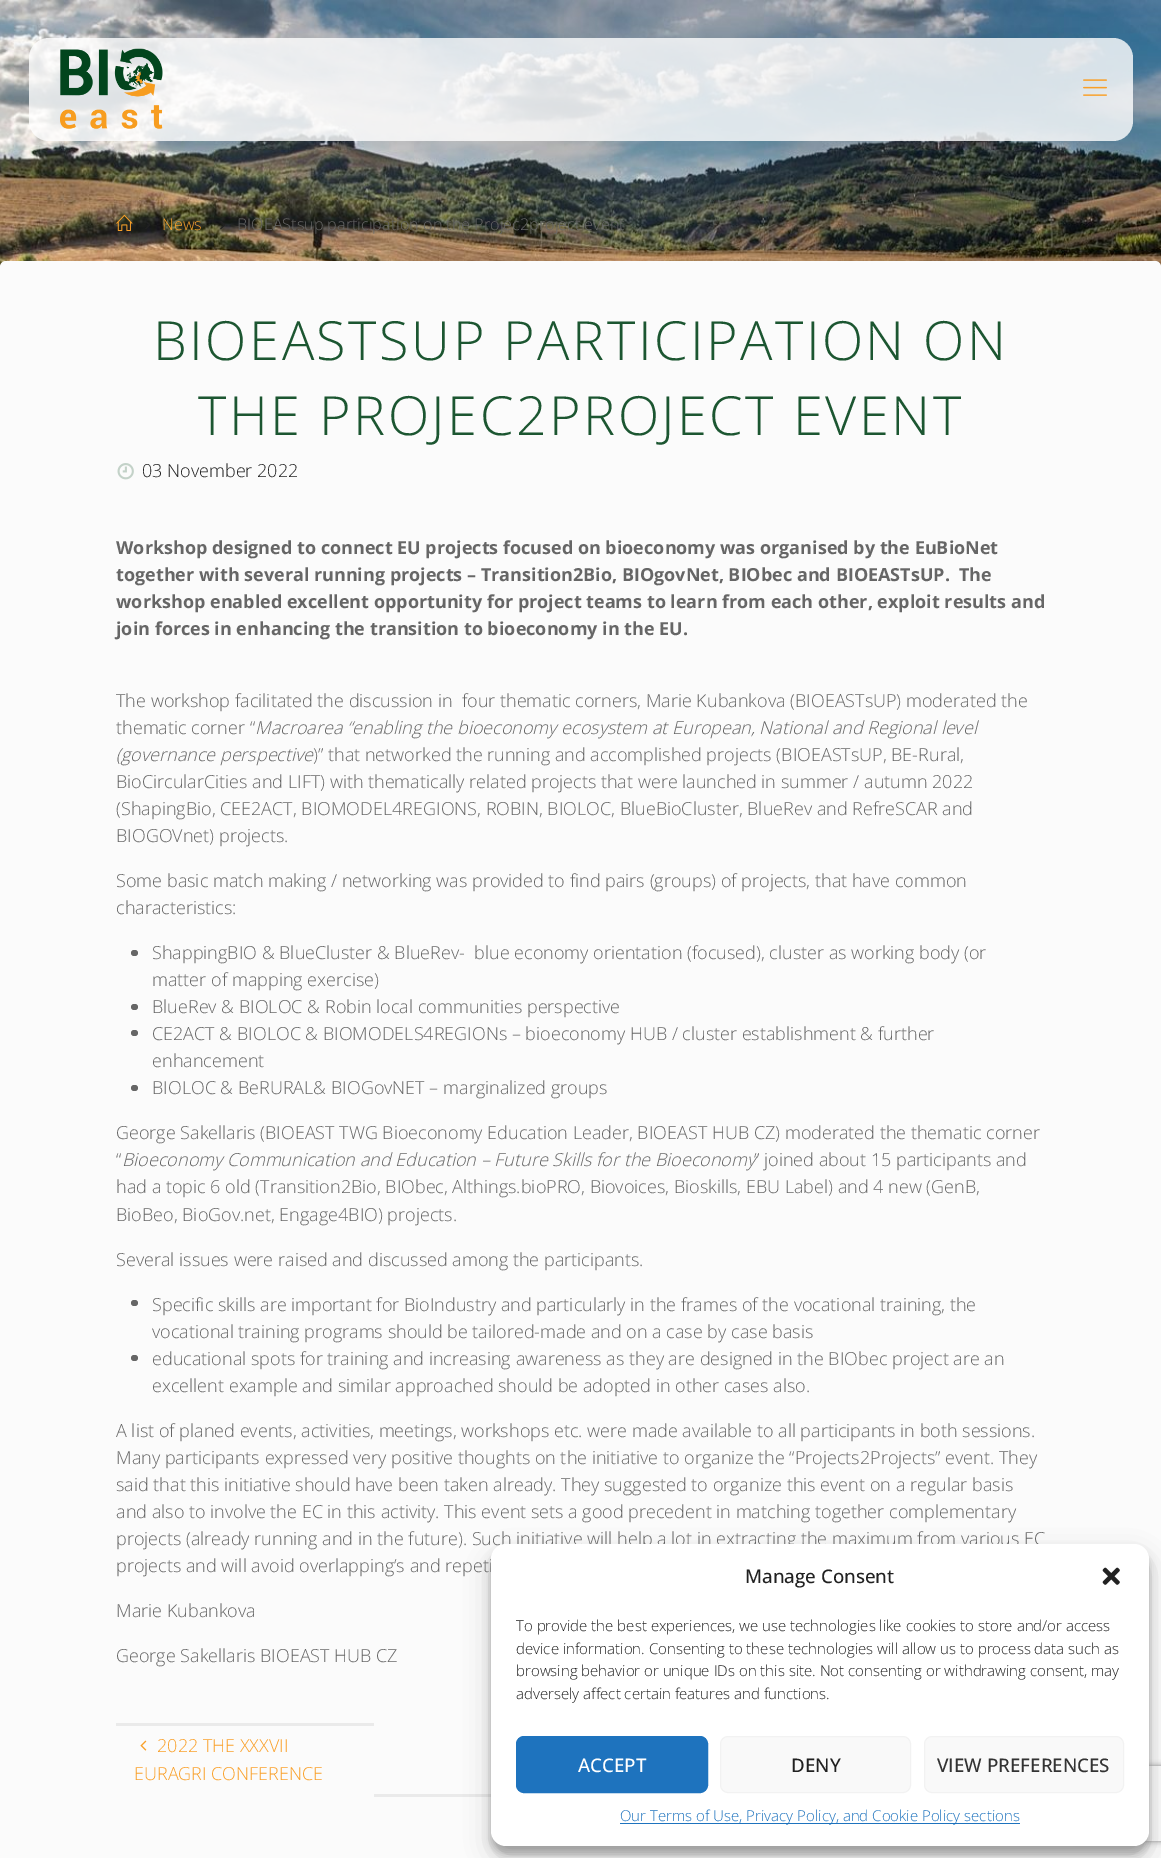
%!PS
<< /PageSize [1161 1858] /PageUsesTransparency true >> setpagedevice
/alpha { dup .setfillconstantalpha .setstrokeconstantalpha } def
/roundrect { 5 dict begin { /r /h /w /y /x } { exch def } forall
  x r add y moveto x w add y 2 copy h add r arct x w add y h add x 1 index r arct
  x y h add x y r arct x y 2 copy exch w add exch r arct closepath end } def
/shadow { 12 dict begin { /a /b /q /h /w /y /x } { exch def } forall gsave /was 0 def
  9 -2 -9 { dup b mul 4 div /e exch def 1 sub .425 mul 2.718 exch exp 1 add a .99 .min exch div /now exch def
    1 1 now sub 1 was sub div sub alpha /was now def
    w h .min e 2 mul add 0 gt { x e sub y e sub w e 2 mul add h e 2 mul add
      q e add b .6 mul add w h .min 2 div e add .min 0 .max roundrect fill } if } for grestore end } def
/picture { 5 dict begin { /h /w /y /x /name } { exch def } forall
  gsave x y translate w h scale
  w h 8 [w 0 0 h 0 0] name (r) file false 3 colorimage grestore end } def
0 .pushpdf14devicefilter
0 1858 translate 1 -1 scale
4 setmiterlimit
0.984 setgray
0 0 1161 1858 rectfill
(img1.rgb) 0 0 1161 267 picture
0.8 alpha
1 setgray
29 38 1104 103 20 roundrect fill
1 alpha
(img2.rgb) 60 48 103 81 picture
(img3.rgb) 1083 79 24 17 picture
(img4.rgb) 116 214 17 17 picture
(img5.rgb) 145 222 5 7 picture
/OpenSans-Light [16.2 0 0 -16.2 0 0] selectfont
0.976 0.627 0.161 setrgbcolor
162 230 moveto (News) show
(img6.rgb) 220 221 5 9 picture
0.4 setgray
237 230 moveto (BIOEAStsup participation on the Projec2project event) show
0.984 setgray
0 261 1161 1570 6 roundrect fill
/OpenSans-Light [54 0 0 -54 0 0] selectfont
0.11 0.337 0.192 setrgbcolor
153 360 moveto 2.5 0 (BIOEASTSUP PARTICIPATION ON) ashow
198 435 moveto 2.5 0 (THE PROJEC2PROJECT EVENT) ashow
(img7.rgb) 117 463 17 17 picture
/OpenSans-Light [18 0 0 -18 0 0] selectfont
0.129 setgray
142 477 moveto (03 November 2022) show
/OpenSans-Bold [18 0 0 -18 0 0] selectfont
0.4 setgray
116 554 moveto (Workshop designed to connect EU projects focused on bioeconomy was organised by the EuBioNet) show
116 581 moveto (together with several running projects – Transition2Bio, BIOgovNet, BIObec and BIOEASTsUP.  The) show
116 608 moveto (workshop enabled excellent opportunity for project teams to learn from each other, exploit results and) show
116 635 moveto (join forces in enhancing the transition to bioeconomy in the EU.) show
/OpenSans-Light [18 0 0 -18 0 0] selectfont
116 707 moveto (The workshop facilitated the discussion in  four thematic corners, Marie Kubankova \(BIOEASTsUP\) moderated the) show
116 734 moveto (thematic corner “) show
/OpenSans-LightItalic [18 0 0 -18 0 0] selectfont
255 734 moveto (Macroarea “enabling the bioeconomy ecosystem at European, National and Regional level) show
116 761 moveto (\(governance perspective) show
/OpenSans-Light [18 0 0 -18 0 0] selectfont
313 761 moveto (\)” that networked the running and accomplished projects \(BIOEASTsUP, BE-Rural,) show
116 788 moveto (BioCircularCities and LIFT\) with thematically related projects that were launched in summer / autumn 2022) show
116 815 moveto (\(ShapingBio, CEE2ACT, BIOMODEL4REGIONS, ROBIN, BIOLOC, BlueBioCluster, BlueRev and RefreSCAR and) show
116 842 moveto (BIOGOVnet\) projects.) show
116 887 moveto (Some basic match making / networking was provided to find pairs \(groups\) of projects, that have common) show
116 914 moveto (characteristics:) show
131 950 7 6 3 roundrect fill
152 959 moveto (ShappingBIO & BlueCluster & BlueRev-  blue economy orientation \(focused\), cluster as working body \(or) show
152 986 moveto (matter of mapping exercise\)) show
131 1004 7 6 3 roundrect fill
152 1013 moveto (BlueRev & BIOLOC & Robin local communities perspective) show
131 1030 7 6 3 roundrect fill
152 1040 moveto (CE2ACT & BIOLOC & BIOMODELS4REGIONs – bioeconomy HUB / cluster establishment & further) show
152 1067 moveto (enhancement) show
131 1085 7 6 3 roundrect fill
152 1094 moveto (BIOLOC & BeRURAL& BIOGovNET – marginalized groups) show
116 1139 moveto (George Sakellaris \(BIOEAST TWG Bioeconomy Education Leader, BIOEAST HUB CZ\) moderated the thematic corner) show
116 1166 moveto (“) show
/OpenSans-LightItalic [18 0 0 -18 0 0] selectfont
122 1166 moveto (Bioeconomy Communication and Education – Future Skills for the Bioeconomy) show
/OpenSans-Light [18 0 0 -18 0 0] selectfont
754 1166 moveto (” joined about 15 participants and) show
116 1193 moveto (had a topic 6 old \(Transition2Bio, BIObec, Althings.bioPRO, Biovoices, Bioskills, EBU Label\) and 4 new \(GenB,) show
116 1221 moveto (BioBeo, BioGov.net, Engage4BIO\) projects.) show
116 1266 moveto (Several issues were raised and discussed among the participants.) show
131 1300 7 6 3 roundrect fill
152 1311 moveto (Specific skills are important for BioIndustry and particularly in the frames of the vocational training, the) show
152 1338 moveto (vocational training programs should be tailored-made and on a case by case basis) show
131 1355 7 6 3 roundrect fill
152 1365 moveto (educational spots for training and increasing awareness as they are designed in the BIObec project are an) show
152 1392 moveto (excellent example and similar approached should be adopted in other cases also.) show
116 1437 moveto (A list of planed events, activities, meetings, workshops etc. were made available to all participants in both sessions.) show
116 1464 moveto (Many participants expressed very positive thoughts on the initiative to organize the “Projects2Projects” event. They) show
116 1491 moveto (said that this initiative should have been taken already. They suggested to organize this event on a regular basis) show
116 1518 moveto (and also to involve the EC in this activity. This event sets a good precedent in matching together complementary) show
116 1545 moveto (projects \(already running and in the future\). Such initiative will help a lot in extracting the maximum from various EC) show
116 1572 moveto (projects and will avoid overlapping’s and repeti) show
116 1617 moveto (Marie Kubankova) show
116 1662 moveto (George Sakellaris BIOEAST HUB CZ) show
0.918 setgray
116 1723 258 3 rectfill
(img8.rgb) 140 1740 7 11 picture
0.976 0.627 0.161 setrgbcolor
157 1752 moveto (2022 THE XXXVII) show
134 1780 moveto (EURAGRI CONFERENCE) show
0.918 setgray
374 1794 117 3 rectfill
0 setgray
491 1551 658 303 15 4 0.23 shadow
491 1556 658 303 15 12.5 0.19 shadow
gsave
newpath 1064 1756 moveto 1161 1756 lineto 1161 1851 lineto 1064 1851 lineto closepath 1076.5 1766 moveto 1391.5 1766 lineto 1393 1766 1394 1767 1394 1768.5 curveto 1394 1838.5 lineto 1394 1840 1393 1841 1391.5 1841 curveto 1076.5 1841 lineto 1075 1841 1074 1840 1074 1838.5 curveto 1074 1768.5 lineto 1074 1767 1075 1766 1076.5 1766 curveto closepath eoclip newpath
0.502 setgray
1074 1766 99 75 2.5 3 1 shadow
grestore
1 setgray
491 1544 658 302 15 roundrect fill
/OpenSans-Medium [18.75 0 0 -18.75 0 0] selectfont
0.129 setgray
745 1583 moveto (Manage Consent) show
(img9.rgb) 1102 1567 18 18 picture
/OpenSans-Light [15 0 0 -15 0 0] selectfont
516 1631 moveto (To provide the best experiences, we use technologies like cookies to store and/or access) show
516 1654 moveto (device information. Consenting to these technologies will allow us to process data such as) show
516 1676 moveto (browsing behavior or unique IDs on this site. Not consenting or withdrawing consent, may) show
516 1699 moveto (adversely affect certain features and functions.) show
0.118 0.451 0.745 setrgbcolor
516.5 1736.5 191 56 7.5 roundrect gsave fill grestore
stroke
/OpenSans-Medium [18.75 0 0 -18.75 0 0] selectfont
1 setgray
578 1772 moveto (ACCEPT) show
0.976 setgray
720.5 1736.5 190 56 7.5 roundrect gsave fill grestore
0.949 setgray
stroke
0.129 setgray
791 1772 moveto (DENY) show
0.976 setgray
924.5 1736.5 199 56 7.5 roundrect gsave fill grestore
0.949 setgray
stroke
0.2 setgray
937 1772 moveto (VIEW PREFERENCES) show
0.118 0.451 0.745 setrgbcolor
620 1823 400 1 rectfill
/OpenSans-Light [15 0 0 -15 0 0] selectfont
620 1821 moveto (Our Terms of Use, Privacy Policy, and Cookie Policy sections) show
.poppdf14devicefilter showpage
